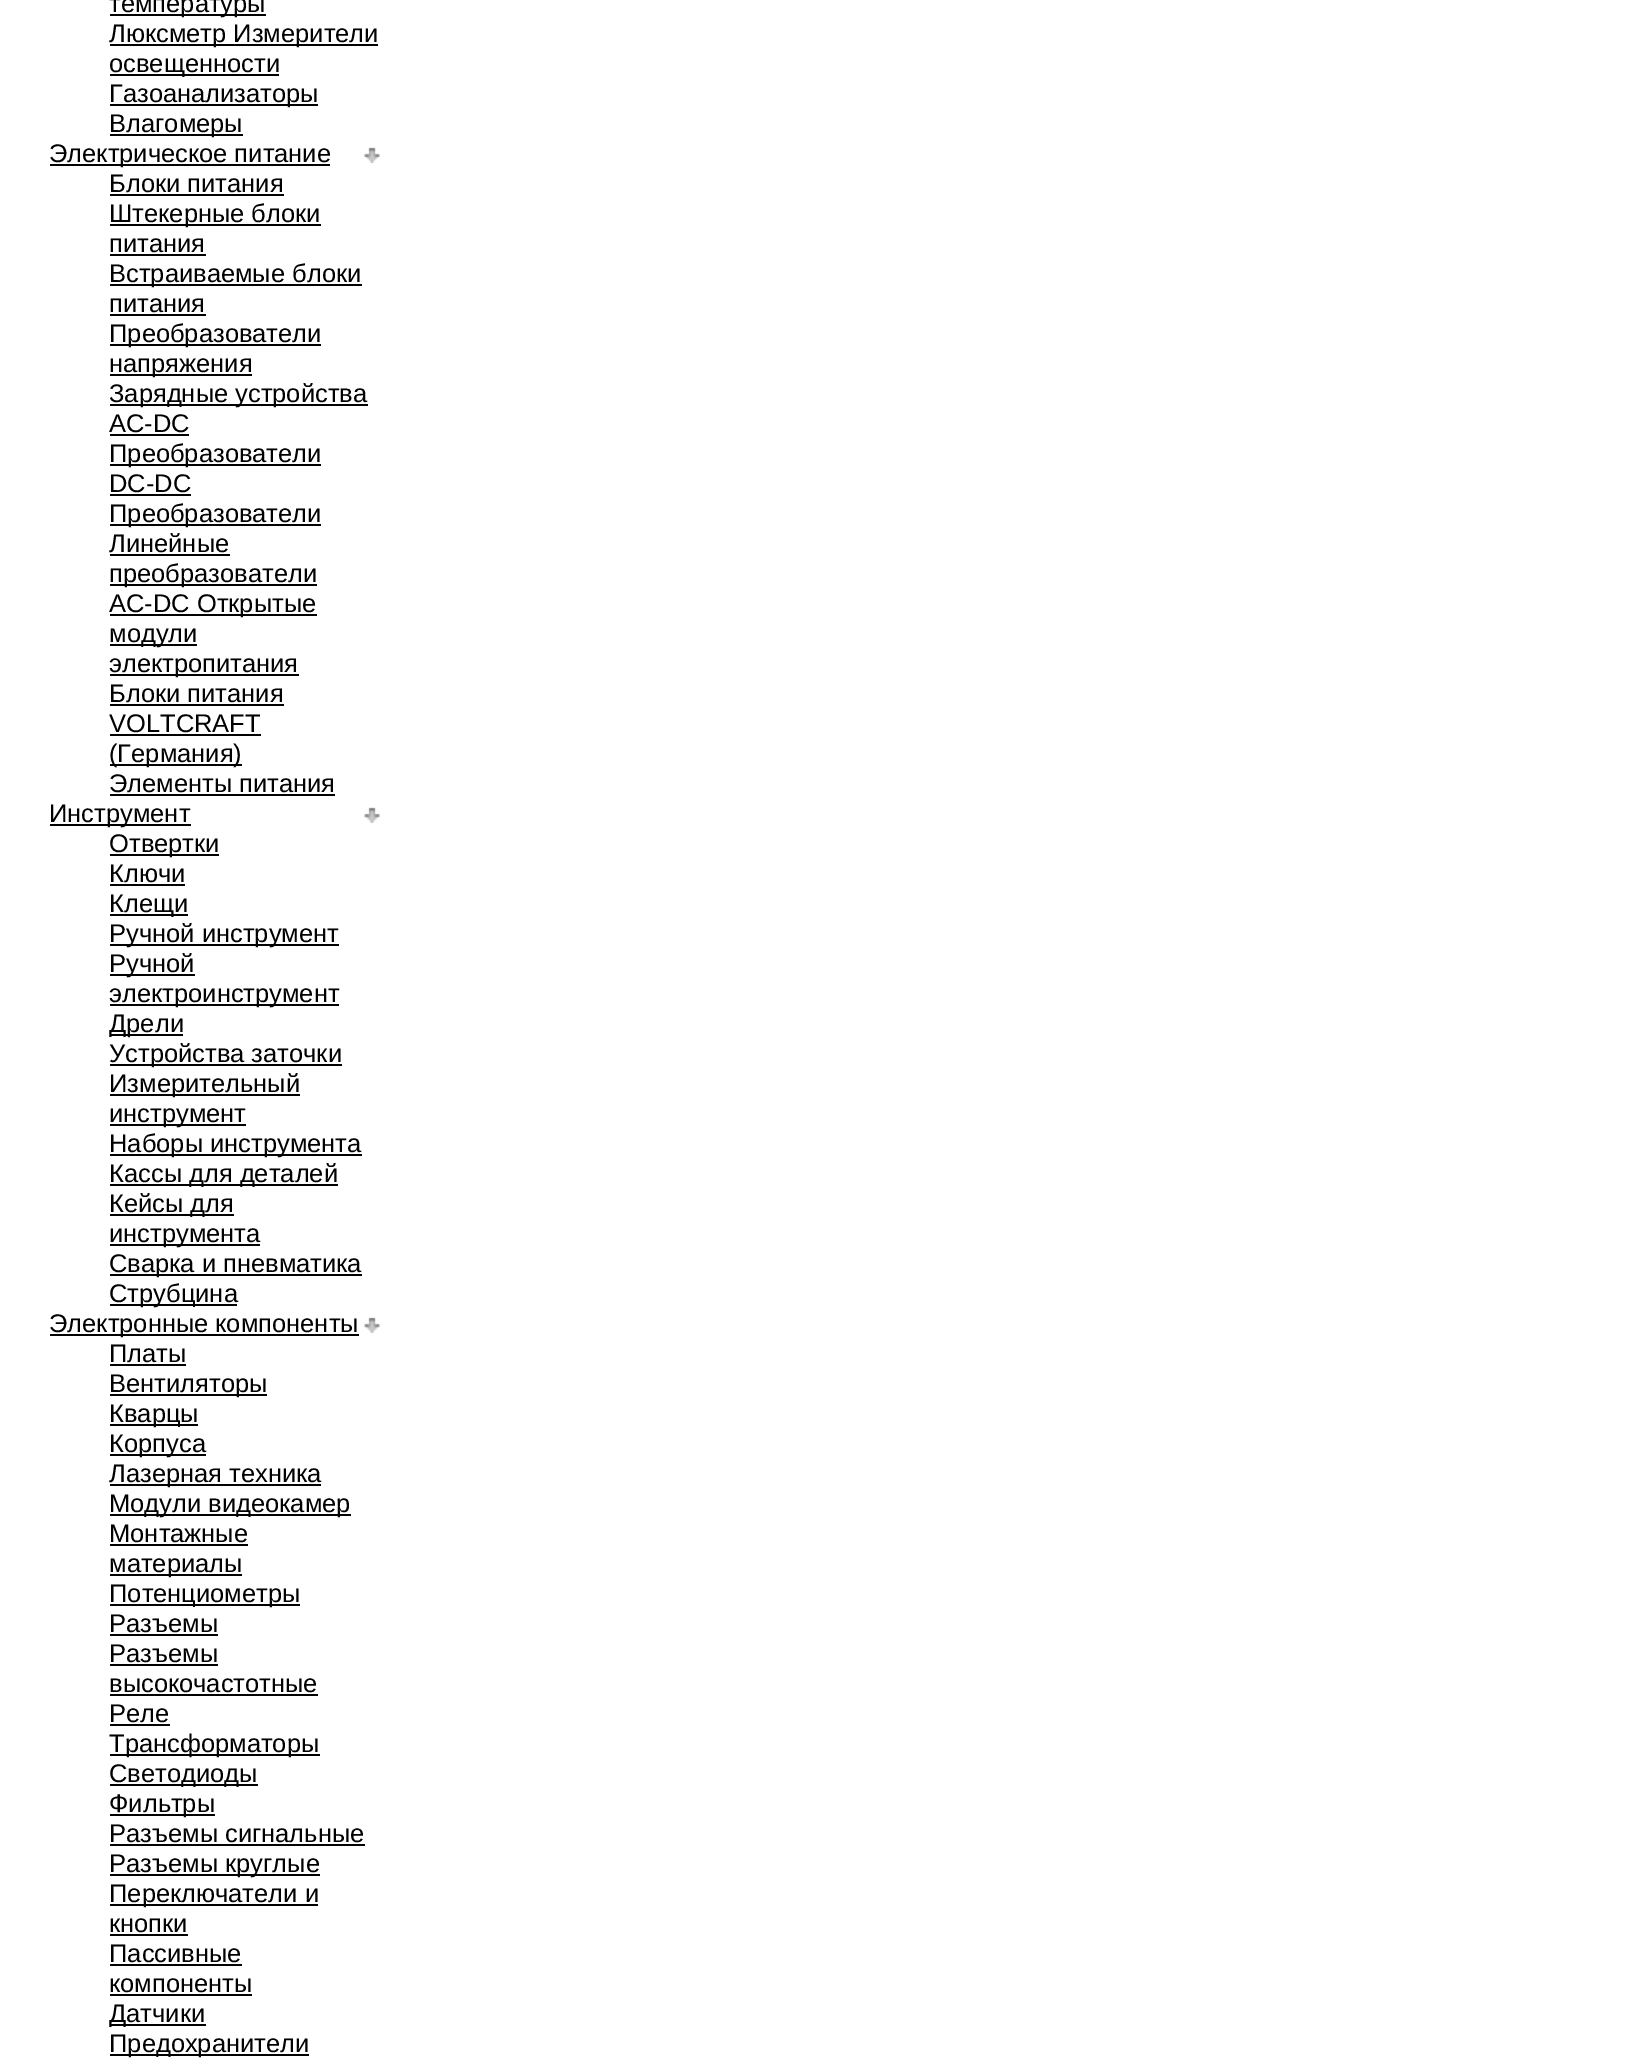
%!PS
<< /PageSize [1634 2064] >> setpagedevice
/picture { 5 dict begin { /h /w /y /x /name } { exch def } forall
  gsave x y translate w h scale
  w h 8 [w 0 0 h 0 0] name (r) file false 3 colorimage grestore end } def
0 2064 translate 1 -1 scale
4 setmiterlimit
1 setgray
0 0 1634 2064 rectfill
0 setgray
110 14 156 2 rectfill
/LiberationSans-Regular [25.5 0 0 -25.5 0 0] selectfont
109 12 moveto (температуры) show
110 44 268 2 rectfill
109 42 moveto (Люксметр Измерители) show
110 74 169 2 rectfill
109 72 moveto (освещенности) show
110 104 208 2 rectfill
109 102 moveto (Газоанализаторы) show
110 134 133 2 rectfill
109 132 moveto (Влагомеры) show
50 164 280 2 rectfill
49 162 moveto (Электрическое питание) show
(img1.rgb) 364 147 16 16 picture
109 192 moveto (Блоки питания) show
110 194 174 2 rectfill
110 224 211 2 rectfill
109 222 moveto (Штекерные блоки) show
109 252 moveto (питания) show
110 254 96 2 rectfill
110 284 252 2 rectfill
109 282 moveto (Встраиваемые блоки) show
109 312 moveto (питания) show
110 314 96 2 rectfill
110 344 211 2 rectfill
109 342 moveto (Преобразователи) show
110 374 142 2 rectfill
109 372 moveto (напряжения) show
110 404 258 2 rectfill
109 402 moveto (Зарядные устройства) show
109 432 moveto (AC-DC) show
110 434 79 2 rectfill
110 464 211 2 rectfill
109 462 moveto (Преобразователи) show
109 492 moveto (DC-DC) show
110 494 81 2 rectfill
110 524 211 2 rectfill
109 522 moveto (Преобразователи) show
109 552 moveto (Линейные) show
110 554 120 2 rectfill
110 584 207 2 rectfill
109 582 moveto (преобразователи) show
110 614 207 2 rectfill
109 612 moveto (AC-DC Открытые) show
110 644 87 2 rectfill
109 642 moveto (модули) show
110 674 189 2 rectfill
109 672 moveto (электропитания) show
109 702 moveto (Блоки питания) show
110 704 174 2 rectfill
109 732 moveto (VOLTCRAFT) show
110 734 151 2 rectfill
110 764 132 2 rectfill
109 762 moveto (\(Германия\)) show
109 792 moveto (Элементы питания) show
110 794 225 2 rectfill
50 824 141 2 rectfill
49 822 moveto (Инструмент) show
(img1.rgb) 364 807 16 16 picture
110 854 109 2 rectfill
109 852 moveto (Отвертки) show
109 882 moveto (Ключи) show
110 884 75 2 rectfill
110 914 78 2 rectfill
109 912 moveto (Клещи) show
110 944 229 2 rectfill
109 942 moveto (Ручной инструмент) show
110 974 85 2 rectfill
109 972 moveto (Ручной) show
110 1004 229 2 rectfill
109 1002 moveto (электроинструмент) show
110 1034 73 2 rectfill
109 1032 moveto (Дрели) show
110 1064 232 2 rectfill
109 1062 moveto (Устройства заточки) show
110 1094 190 2 rectfill
109 1092 moveto (Измерительный) show
110 1124 136 2 rectfill
109 1122 moveto (инструмент) show
110 1154 252 2 rectfill
109 1152 moveto (Наборы инструмента) show
110 1184 228 2 rectfill
109 1182 moveto (Кассы для деталей) show
110 1214 124 2 rectfill
109 1212 moveto (Кейсы для) show
110 1244 150 2 rectfill
109 1242 moveto (инструмента) show
110 1274 252 2 rectfill
109 1272 moveto (Сварка и пневматика) show
110 1304 127 2 rectfill
109 1302 moveto (Струбцина) show
50 1334 309 2 rectfill
49 1332 moveto (Электронные компоненты) show
(img1.rgb) 364 1317 16 16 picture
109 1362 moveto (Платы) show
110 1364 76 2 rectfill
110 1394 157 2 rectfill
109 1392 moveto (Вентиляторы) show
110 1424 88 2 rectfill
109 1422 moveto (Кварцы) show
110 1454 96 2 rectfill
109 1452 moveto (Корпуса) show
110 1484 211 2 rectfill
109 1482 moveto (Лазерная техника) show
110 1514 241 2 rectfill
109 1512 moveto (Модули видеокамер) show
109 1542 moveto (Монтажные) show
110 1544 138 2 rectfill
110 1574 132 2 rectfill
109 1572 moveto (материалы) show
110 1604 190 2 rectfill
109 1602 moveto (Потенциометры) show
109 1632 moveto (Разъемы) show
110 1634 108 2 rectfill
109 1662 moveto (Разъемы) show
110 1664 108 2 rectfill
109 1692 moveto (высокочастотные) show
110 1694 208 2 rectfill
109 1722 moveto (Реле) show
110 1724 60 2 rectfill
110 1754 210 2 rectfill
109 1752 moveto (Трансформаторы) show
110 1784 148 2 rectfill
109 1782 moveto (Светодиоды) show
110 1814 105 2 rectfill
109 1812 moveto (Фильтры) show
109 1842 moveto (Разъемы сигнальные) show
110 1844 255 2 rectfill
110 1874 210 2 rectfill
109 1872 moveto (Разъемы круглые) show
110 1904 208 2 rectfill
109 1902 moveto (Переключатели и) show
109 1932 moveto (кнопки) show
110 1934 78 2 rectfill
109 1962 moveto (Пассивные) show
110 1964 132 2 rectfill
109 1992 moveto (компоненты) show
110 1994 142 2 rectfill
110 2024 96 2 rectfill
109 2022 moveto (Датчики) show
110 2054 199 2 rectfill
109 2052 moveto (Предохранители) show
showpage
